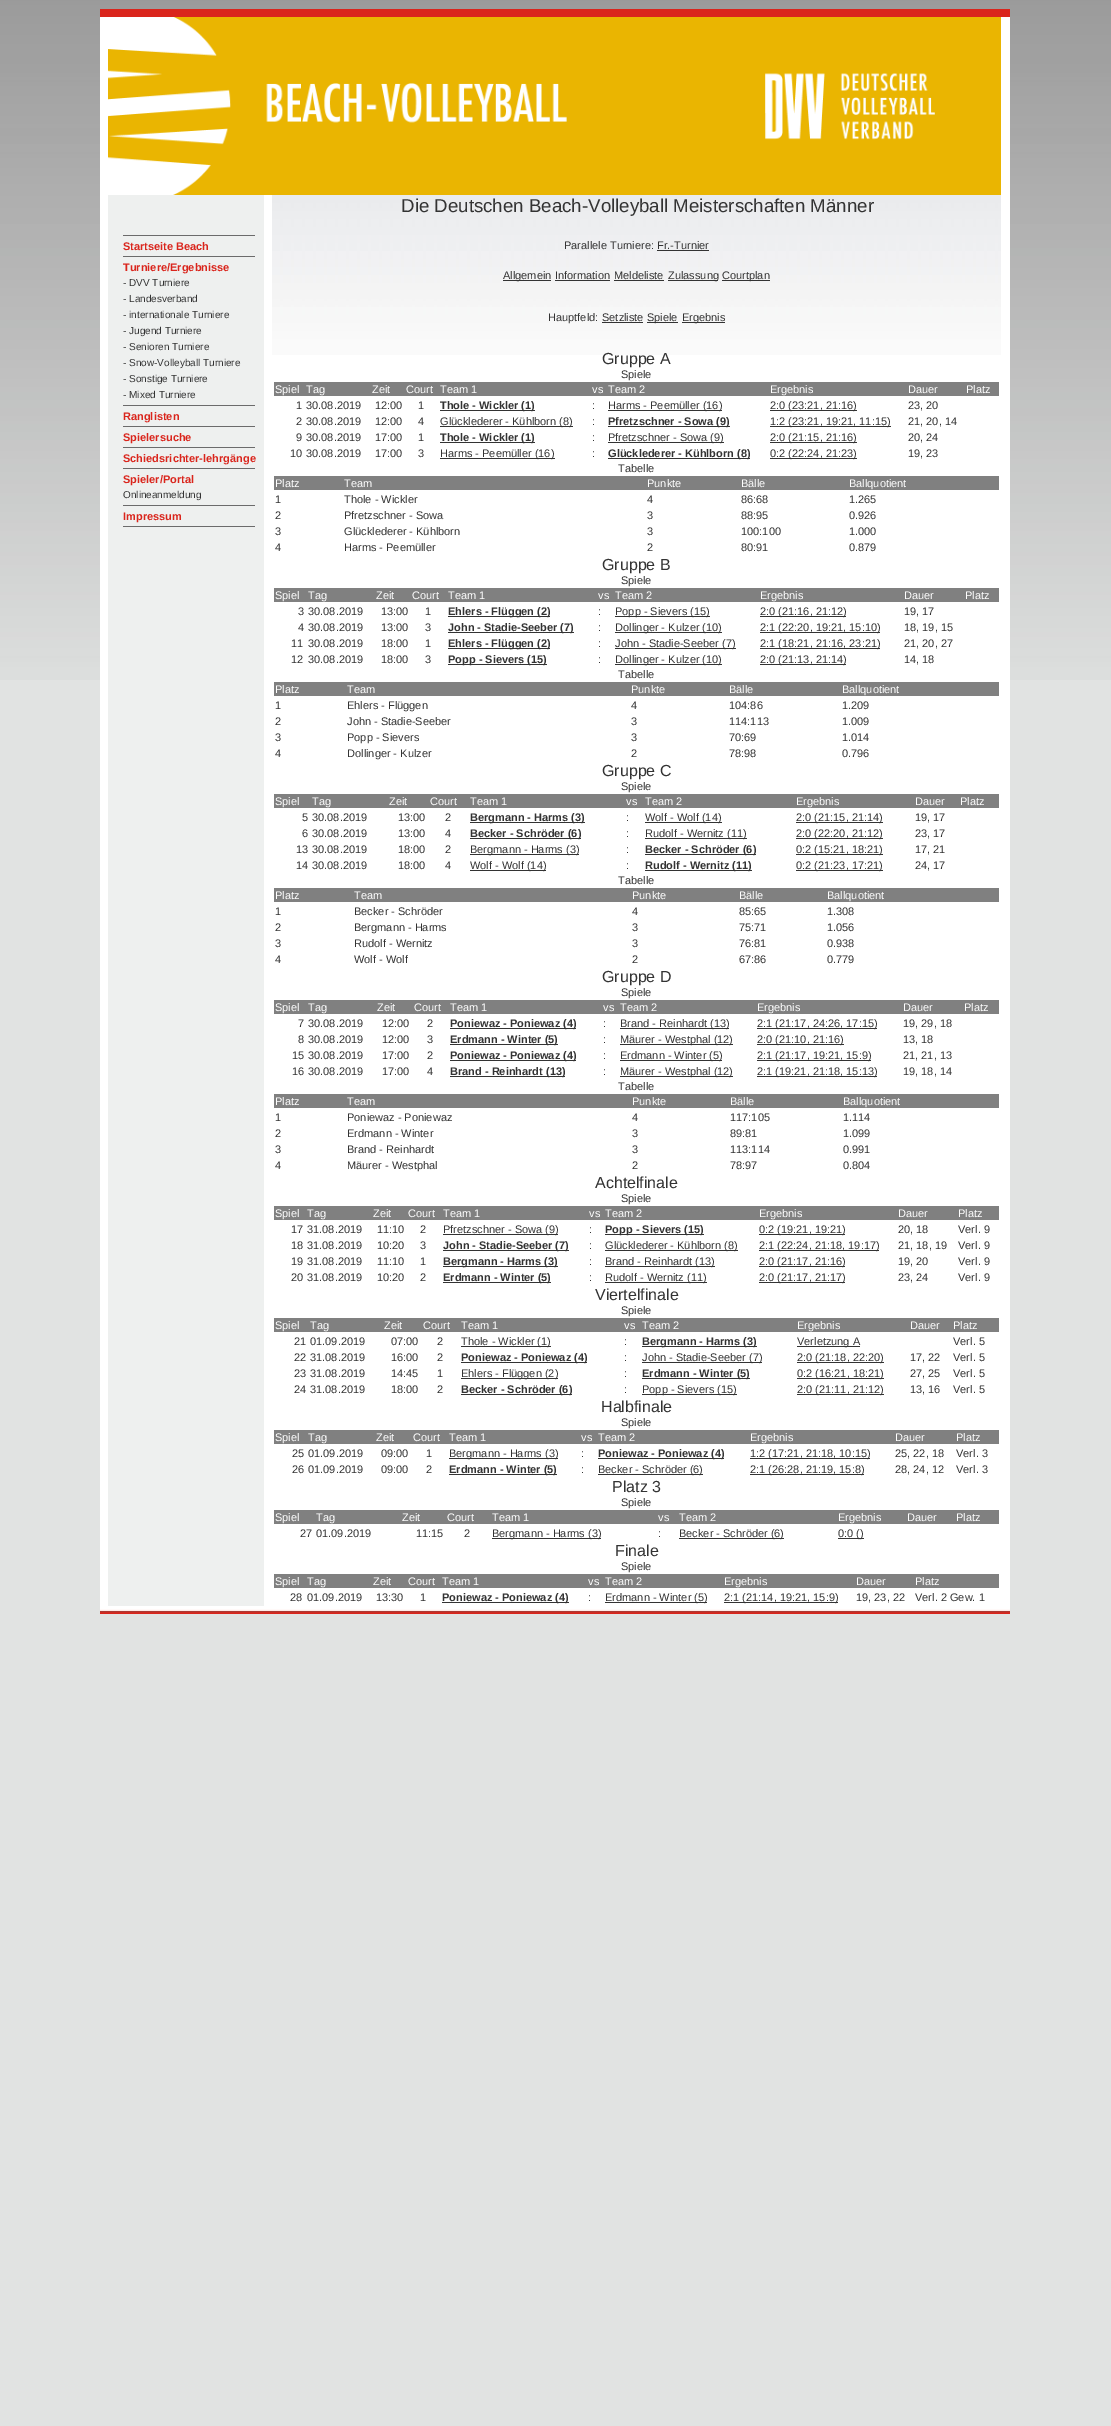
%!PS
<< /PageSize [1111 2426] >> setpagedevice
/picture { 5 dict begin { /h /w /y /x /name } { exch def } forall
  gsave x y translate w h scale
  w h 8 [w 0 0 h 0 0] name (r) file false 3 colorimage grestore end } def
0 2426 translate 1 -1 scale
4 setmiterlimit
0.882 0.89 0.886 setrgbcolor
0 0 1111 2426 rectfill
(img1.rgb) 0 0 1111 680 picture
0.855 0.145 0.11 setrgbcolor
100 9 910 8 rectfill
1 setgray
100 17 8 1589 rectfill
(img2.rgb) 108 17 893 178 picture
1001 17 9 1589 rectfill
(img3.rgb) 108 195 164 1411 picture
0.42 setgray
123 235 132 1 rectfill
/LiberationSans-Bold [11 0 0 -11 0 0] selectfont
0.855 0.145 0.11 setrgbcolor
123 250 moveto (Startseite Beach) show
0.42 setgray
123 256 132 1 rectfill
0.855 0.145 0.11 setrgbcolor
123 271 moveto (Turniere/Ergebnisse) show
/LiberationSans-Regular [10 0 0 -10 0 0] selectfont
0.2 setgray
123 286 moveto (- DVV Turniere) show
123 302 moveto (- Landesverband) show
123 318 moveto (- internationale Turniere) show
123 334 moveto (- Jugend Turniere) show
123 350 moveto (- Senioren Turniere) show
123 366 moveto (- Snow-Volleyball Turniere) show
123 382 moveto (- Sonstige Turniere) show
123 398 moveto (- Mixed Turniere) show
0.42 setgray
123 405 132 1 rectfill
/LiberationSans-Bold [11 0 0 -11 0 0] selectfont
0.855 0.145 0.11 setrgbcolor
123 420 moveto (Ranglisten) show
0.42 setgray
123 426 132 1 rectfill
0.855 0.145 0.11 setrgbcolor
123 441 moveto (Spielersuche) show
0.42 setgray
123 447 132 1 rectfill
0.855 0.145 0.11 setrgbcolor
123 462 moveto (Schiedsrichter-lehrgänge) show
0.42 setgray
123 468 132 1 rectfill
0.855 0.145 0.11 setrgbcolor
123 483 moveto (Spieler/Portal) show
/LiberationSans-Regular [10 0 0 -10 0 0] selectfont
0.2 setgray
123 498 moveto (Onlineanmeldung) show
0.42 setgray
123 505 132 1 rectfill
/LiberationSans-Bold [11 0 0 -11 0 0] selectfont
0.855 0.145 0.11 setrgbcolor
123 520 moveto (Impressum) show
0.42 setgray
123 526 132 1 rectfill
1 setgray
272 355 729 1251 rectfill
(img4.rgb) 272 195 729 160 picture
/LiberationSans-Regular [18.7 0 0 -18.7 0 0] selectfont
0.2 setgray
401 212 moveto (Die Deutschen Beach-Volleyball Meisterschaften Männer) show
/LiberationSans-Regular [11 0 0 -11 0 0] selectfont
564 249 moveto (Parallele Turniere:) show
657 249 moveto (Fr.-Turnier) show
657 250 52 1 rectfill
503 280 48 1 rectfill
503 279 moveto (Allgemein) show
555 279 moveto (Information) show
555 280 55 1 rectfill
614 279 moveto (Meldeliste) show
614 280 50 1 rectfill
668 280 50 1 rectfill
668 279 moveto (Zulassung) show
722 280 48 1 rectfill
722 279 moveto (Courtplan) show
548 321 moveto (Hauptfeld:) show
602 321 moveto (Setzliste) show
602 322 41 1 rectfill
647 322 31 1 rectfill
647 321 moveto (Spiele) show
682 322 43 1 rectfill
682 321 moveto (Ergebnis) show
/LiberationSans-Regular [16 0 0 -16 0 0] selectfont
602 364 moveto (Gruppe A) show
/LiberationSans-Regular [11 0 0 -11 0 0] selectfont
621 378 moveto (Spiele) show
0.502 setgray
274 382 725 14 rectfill
1 setgray
275 393 moveto (Spiel) show
306 393 moveto (Tag) show
372 393 moveto (Zeit) show
406 393 moveto (Court) show
440 393 moveto (Team 1) show
592 393 moveto (vs) show
608 393 moveto (Team 2) show
770 393 moveto (Ergebnis) show
908 393 moveto (Dauer) show
966 393 moveto (Platz) show
0.2 setgray
296 409 moveto (1) show
306 409 moveto (30.08.2019) show
375 409 moveto (12:00) show
418 409 moveto (1) show
440 410 95 1 rectfill
/LiberationSans-Bold [11 0 0 -11 0 0] selectfont
440 409 moveto (Thole - Wickler \(1\)) show
/LiberationSans-Regular [11 0 0 -11 0 0] selectfont
592 409 moveto (:) show
608 410 114 1 rectfill
608 409 moveto (Harms - Peemüller \(16\)) show
770 410 87 1 rectfill
770 409 moveto (2:0 \(23:21, 21:16\)) show
908 409 moveto (23, 20) show
296 425 moveto (2) show
306 425 moveto (30.08.2019) show
375 425 moveto (12:00) show
418 425 moveto (4) show
440 426 133 1 rectfill
440 425 moveto (Glücklederer - Kühlborn \(8\)) show
592 425 moveto (:) show
608 426 122 1 rectfill
/LiberationSans-Bold [11 0 0 -11 0 0] selectfont
608 425 moveto (Pfretzschner - Sowa \(9\)) show
770 426 121 1 rectfill
/LiberationSans-Regular [11 0 0 -11 0 0] selectfont
770 425 moveto (1:2 \(23:21, 19:21, 11:15\)) show
908 425 moveto (21, 20, 14) show
296 441 moveto (9) show
306 441 moveto (30.08.2019) show
375 441 moveto (17:00) show
418 441 moveto (1) show
440 442 95 1 rectfill
/LiberationSans-Bold [11 0 0 -11 0 0] selectfont
440 441 moveto (Thole - Wickler \(1\)) show
/LiberationSans-Regular [11 0 0 -11 0 0] selectfont
592 441 moveto (:) show
608 442 116 1 rectfill
608 441 moveto (Pfretzschner - Sowa \(9\)) show
770 442 87 1 rectfill
770 441 moveto (2:0 \(21:15, 21:16\)) show
908 441 moveto (20, 24) show
290 457 moveto (10) show
306 457 moveto (30.08.2019) show
375 457 moveto (17:00) show
418 457 moveto (3) show
440 458 115 1 rectfill
440 457 moveto (Harms - Peemüller \(16\)) show
592 457 moveto (:) show
608 458 142 1 rectfill
/LiberationSans-Bold [11 0 0 -11 0 0] selectfont
608 457 moveto (Glücklederer - Kühlborn \(8\)) show
770 458 87 1 rectfill
/LiberationSans-Regular [11 0 0 -11 0 0] selectfont
770 457 moveto (0:2 \(22:24, 21:23\)) show
908 457 moveto (19, 23) show
618 472 moveto (Tabelle) show
0.502 setgray
274 476 725 14 rectfill
1 setgray
275 487 moveto (Platz) show
344 487 moveto (Team) show
647 487 moveto (Punkte) show
741 487 moveto (Bälle) show
849 487 moveto (Ballquotient) show
0.2 setgray
275 503 moveto (1) show
344 503 moveto (Thole - Wickler) show
647 503 moveto (4) show
741 503 moveto (86:68) show
849 503 moveto (1.265) show
275 519 moveto (2) show
344 519 moveto (Pfretzschner - Sowa) show
647 519 moveto (3) show
741 519 moveto (88:95) show
849 519 moveto (0.926) show
275 535 moveto (3) show
344 535 moveto (Glücklederer - Kühlborn) show
647 535 moveto (3) show
741 535 moveto (100:100) show
849 535 moveto (1.000) show
275 551 moveto (4) show
344 551 moveto (Harms - Peemüller) show
647 551 moveto (2) show
741 551 moveto (80:91) show
849 551 moveto (0.879) show
/LiberationSans-Regular [16 0 0 -16 0 0] selectfont
602 570 moveto (Gruppe B) show
/LiberationSans-Regular [11 0 0 -11 0 0] selectfont
621 584 moveto (Spiele) show
0.502 setgray
274 588 725 14 rectfill
1 setgray
275 599 moveto (Spiel) show
308 599 moveto (Tag) show
376 599 moveto (Zeit) show
412 599 moveto (Court) show
448 599 moveto (Team 1) show
598 599 moveto (vs) show
615 599 moveto (Team 2) show
760 599 moveto (Ergebnis) show
904 599 moveto (Dauer) show
965 599 moveto (Platz) show
0.2 setgray
298 615 moveto (3) show
308 615 moveto (30.08.2019) show
381 615 moveto (13:00) show
425 615 moveto (1) show
448 616 102 1 rectfill
/LiberationSans-Bold [11 0 0 -11 0 0] selectfont
448 615 moveto (Ehlers - Flüggen \(2\)) show
/LiberationSans-Regular [11 0 0 -11 0 0] selectfont
598 615 moveto (:) show
615 616 95 1 rectfill
615 615 moveto (Popp - Sievers \(15\)) show
760 616 86 1 rectfill
760 615 moveto (2:0 \(21:16, 21:12\)) show
904 615 moveto (19, 17) show
298 631 moveto (4) show
308 631 moveto (30.08.2019) show
381 631 moveto (13:00) show
425 631 moveto (3) show
448 632 126 1 rectfill
/LiberationSans-Bold [11 0 0 -11 0 0] selectfont
448 631 moveto (John - Stadie-Seeber \(7\)) show
/LiberationSans-Regular [11 0 0 -11 0 0] selectfont
598 631 moveto (:) show
615 632 107 1 rectfill
615 631 moveto (Dollinger - Kulzer \(10\)) show
760 632 120 1 rectfill
760 631 moveto (2:1 \(22:20, 19:21, 15:10\)) show
904 631 moveto (18, 19, 15) show
291 647 moveto (11) show
308 647 moveto (30.08.2019) show
381 647 moveto (18:00) show
425 647 moveto (1) show
448 648 102 1 rectfill
/LiberationSans-Bold [11 0 0 -11 0 0] selectfont
448 647 moveto (Ehlers - Flüggen \(2\)) show
/LiberationSans-Regular [11 0 0 -11 0 0] selectfont
598 647 moveto (:) show
615 648 121 1 rectfill
615 647 moveto (John - Stadie-Seeber \(7\)) show
760 648 120 1 rectfill
760 647 moveto (2:1 \(18:21, 21:16, 23:21\)) show
904 647 moveto (21, 20, 27) show
291 663 moveto (12) show
308 663 moveto (30.08.2019) show
381 663 moveto (18:00) show
425 663 moveto (3) show
448 664 99 1 rectfill
/LiberationSans-Bold [11 0 0 -11 0 0] selectfont
448 663 moveto (Popp - Sievers \(15\)) show
/LiberationSans-Regular [11 0 0 -11 0 0] selectfont
598 663 moveto (:) show
615 664 107 1 rectfill
615 663 moveto (Dollinger - Kulzer \(10\)) show
760 664 86 1 rectfill
760 663 moveto (2:0 \(21:13, 21:14\)) show
904 663 moveto (14, 18) show
618 678 moveto (Tabelle) show
0.502 setgray
274 682 725 14 rectfill
1 setgray
275 693 moveto (Platz) show
347 693 moveto (Team) show
631 693 moveto (Punkte) show
729 693 moveto (Bälle) show
842 693 moveto (Ballquotient) show
0.2 setgray
275 709 moveto (1) show
347 709 moveto (Ehlers - Flüggen) show
631 709 moveto (4) show
729 709 moveto (104:86) show
842 709 moveto (1.209) show
275 725 moveto (2) show
347 725 moveto (John - Stadie-Seeber) show
631 725 moveto (3) show
729 725 moveto (114:113) show
842 725 moveto (1.009) show
275 741 moveto (3) show
347 741 moveto (Popp - Sievers) show
631 741 moveto (3) show
729 741 moveto (70:69) show
842 741 moveto (1.014) show
275 757 moveto (4) show
347 757 moveto (Dollinger - Kulzer) show
631 757 moveto (2) show
729 757 moveto (78:98) show
842 757 moveto (0.796) show
/LiberationSans-Regular [16 0 0 -16 0 0] selectfont
602 776 moveto (Gruppe C) show
/LiberationSans-Regular [11 0 0 -11 0 0] selectfont
621 790 moveto (Spiele) show
0.502 setgray
274 794 725 14 rectfill
1 setgray
275 805 moveto (Spiel) show
312 805 moveto (Tag) show
389 805 moveto (Zeit) show
430 805 moveto (Court) show
470 805 moveto (Team 1) show
626 805 moveto (vs) show
645 805 moveto (Team 2) show
796 805 moveto (Ergebnis) show
915 805 moveto (Dauer) show
960 805 moveto (Platz) show
0.2 setgray
302 821 moveto (5) show
312 821 moveto (30.08.2019) show
398 821 moveto (13:00) show
445 821 moveto (2) show
470 822 115 1 rectfill
/LiberationSans-Bold [11 0 0 -11 0 0] selectfont
470 821 moveto (Bergmann - Harms \(3\)) show
/LiberationSans-Regular [11 0 0 -11 0 0] selectfont
626 821 moveto (:) show
645 822 77 1 rectfill
645 821 moveto (Wolf - Wolf \(14\)) show
796 822 87 1 rectfill
796 821 moveto (2:0 \(21:15, 21:14\)) show
915 821 moveto (19, 17) show
302 837 moveto (6) show
312 837 moveto (30.08.2019) show
398 837 moveto (13:00) show
445 837 moveto (4) show
470 838 111 1 rectfill
/LiberationSans-Bold [11 0 0 -11 0 0] selectfont
470 837 moveto (Becker - Schröder \(6\)) show
/LiberationSans-Regular [11 0 0 -11 0 0] selectfont
626 837 moveto (:) show
645 838 102 1 rectfill
645 837 moveto (Rudolf - Wernitz \(11\)) show
796 838 87 1 rectfill
796 837 moveto (2:0 \(22:20, 21:12\)) show
915 837 moveto (23, 17) show
296 853 moveto (13) show
312 853 moveto (30.08.2019) show
398 853 moveto (18:00) show
445 853 moveto (2) show
470 854 109 1 rectfill
470 853 moveto (Bergmann - Harms \(3\)) show
626 853 moveto (:) show
645 854 111 1 rectfill
/LiberationSans-Bold [11 0 0 -11 0 0] selectfont
645 853 moveto (Becker - Schröder \(6\)) show
796 854 87 1 rectfill
/LiberationSans-Regular [11 0 0 -11 0 0] selectfont
796 853 moveto (0:2 \(15:21, 18:21\)) show
915 853 moveto (17, 21) show
296 869 moveto (14) show
312 869 moveto (30.08.2019) show
398 869 moveto (18:00) show
445 869 moveto (4) show
470 870 76 1 rectfill
470 869 moveto (Wolf - Wolf \(14\)) show
626 869 moveto (:) show
645 870 107 1 rectfill
/LiberationSans-Bold [11 0 0 -11 0 0] selectfont
645 869 moveto (Rudolf - Wernitz \(11\)) show
796 870 87 1 rectfill
/LiberationSans-Regular [11 0 0 -11 0 0] selectfont
796 869 moveto (0:2 \(21:23, 17:21\)) show
915 869 moveto (24, 17) show
618 884 moveto (Tabelle) show
0.502 setgray
274 888 725 14 rectfill
1 setgray
275 899 moveto (Platz) show
354 899 moveto (Team) show
632 899 moveto (Punkte) show
739 899 moveto (Bälle) show
827 899 moveto (Ballquotient) show
0.2 setgray
275 915 moveto (1) show
354 915 moveto (Becker - Schröder) show
632 915 moveto (4) show
739 915 moveto (85:65) show
827 915 moveto (1.308) show
275 931 moveto (2) show
354 931 moveto (Bergmann - Harms) show
632 931 moveto (3) show
739 931 moveto (75:71) show
827 931 moveto (1.056) show
275 947 moveto (3) show
354 947 moveto (Rudolf - Wernitz) show
632 947 moveto (3) show
739 947 moveto (76:81) show
827 947 moveto (0.938) show
275 963 moveto (4) show
354 963 moveto (Wolf - Wolf) show
632 963 moveto (2) show
739 963 moveto (67:86) show
827 963 moveto (0.779) show
/LiberationSans-Regular [16 0 0 -16 0 0] selectfont
602 982 moveto (Gruppe D) show
/LiberationSans-Regular [11 0 0 -11 0 0] selectfont
621 996 moveto (Spiele) show
0.502 setgray
274 1000 725 14 rectfill
1 setgray
275 1011 moveto (Spiel) show
308 1011 moveto (Tag) show
377 1011 moveto (Zeit) show
414 1011 moveto (Court) show
450 1011 moveto (Team 1) show
603 1011 moveto (vs) show
620 1011 moveto (Team 2) show
757 1011 moveto (Ergebnis) show
903 1011 moveto (Dauer) show
964 1011 moveto (Platz) show
0.2 setgray
298 1027 moveto (7) show
308 1027 moveto (30.08.2019) show
382 1027 moveto (12:00) show
427 1027 moveto (2) show
450 1028 126 1 rectfill
/LiberationSans-Bold [11 0 0 -11 0 0] selectfont
450 1027 moveto (Poniewaz - Poniewaz \(4\)) show
/LiberationSans-Regular [11 0 0 -11 0 0] selectfont
603 1027 moveto (:) show
620 1028 109 1 rectfill
620 1027 moveto (Brand - Reinhardt \(13\)) show
757 1028 120 1 rectfill
757 1027 moveto (2:1 \(21:17, 24:26, 17:15\)) show
903 1027 moveto (19, 29, 18) show
298 1043 moveto (8) show
308 1043 moveto (30.08.2019) show
382 1043 moveto (12:00) show
427 1043 moveto (3) show
450 1044 108 1 rectfill
/LiberationSans-Bold [11 0 0 -11 0 0] selectfont
450 1043 moveto (Erdmann - Winter \(5\)) show
/LiberationSans-Regular [11 0 0 -11 0 0] selectfont
603 1043 moveto (:) show
620 1044 113 1 rectfill
620 1043 moveto (Mäurer - Westphal \(12\)) show
757 1044 87 1 rectfill
757 1043 moveto (2:0 \(21:10, 21:16\)) show
903 1043 moveto (13, 18) show
292 1059 moveto (15) show
308 1059 moveto (30.08.2019) show
382 1059 moveto (17:00) show
427 1059 moveto (2) show
450 1060 126 1 rectfill
/LiberationSans-Bold [11 0 0 -11 0 0] selectfont
450 1059 moveto (Poniewaz - Poniewaz \(4\)) show
/LiberationSans-Regular [11 0 0 -11 0 0] selectfont
603 1059 moveto (:) show
620 1060 102 1 rectfill
620 1059 moveto (Erdmann - Winter \(5\)) show
757 1060 114 1 rectfill
757 1059 moveto (2:1 \(21:17, 19:21, 15:9\)) show
903 1059 moveto (21, 21, 13) show
292 1075 moveto (16) show
308 1075 moveto (30.08.2019) show
382 1075 moveto (17:00) show
427 1075 moveto (4) show
450 1076 115 1 rectfill
/LiberationSans-Bold [11 0 0 -11 0 0] selectfont
450 1075 moveto (Brand - Reinhardt \(13\)) show
/LiberationSans-Regular [11 0 0 -11 0 0] selectfont
603 1075 moveto (:) show
620 1076 113 1 rectfill
620 1075 moveto (Mäurer - Westphal \(12\)) show
757 1076 120 1 rectfill
757 1075 moveto (2:1 \(19:21, 21:18, 15:13\)) show
903 1075 moveto (19, 18, 14) show
618 1090 moveto (Tabelle) show
0.502 setgray
274 1094 725 14 rectfill
1 setgray
275 1105 moveto (Platz) show
347 1105 moveto (Team) show
632 1105 moveto (Punkte) show
730 1105 moveto (Bälle) show
843 1105 moveto (Ballquotient) show
0.2 setgray
275 1121 moveto (1) show
347 1121 moveto (Poniewaz - Poniewaz) show
632 1121 moveto (4) show
730 1121 moveto (117:105) show
843 1121 moveto (1.114) show
275 1137 moveto (2) show
347 1137 moveto (Erdmann - Winter) show
632 1137 moveto (3) show
730 1137 moveto (89:81) show
843 1137 moveto (1.099) show
275 1153 moveto (3) show
347 1153 moveto (Brand - Reinhardt) show
632 1153 moveto (3) show
730 1153 moveto (113:114) show
843 1153 moveto (0.991) show
275 1169 moveto (4) show
347 1169 moveto (Mäurer - Westphal) show
632 1169 moveto (2) show
730 1169 moveto (78:97) show
843 1169 moveto (0.804) show
/LiberationSans-Regular [16 0 0 -16 0 0] selectfont
595 1188 moveto (Achtelfinale) show
/LiberationSans-Regular [11 0 0 -11 0 0] selectfont
621 1202 moveto (Spiele) show
0.502 setgray
274 1206 725 14 rectfill
1 setgray
275 1217 moveto (Spiel) show
307 1217 moveto (Tag) show
373 1217 moveto (Zeit) show
408 1217 moveto (Court) show
443 1217 moveto (Team 1) show
589 1217 moveto (vs) show
605 1217 moveto (Team 2) show
759 1217 moveto (Ergebnis) show
898 1217 moveto (Dauer) show
958 1217 moveto (Platz) show
0.2 setgray
291 1233 moveto (17) show
307 1233 moveto (31.08.2019) show
377 1233 moveto (11:10) show
420 1233 moveto (2) show
443 1234 115 1 rectfill
443 1233 moveto (Pfretzschner - Sowa \(9\)) show
589 1233 moveto (:) show
605 1234 99 1 rectfill
/LiberationSans-Bold [11 0 0 -11 0 0] selectfont
605 1233 moveto (Popp - Sievers \(15\)) show
759 1234 86 1 rectfill
/LiberationSans-Regular [11 0 0 -11 0 0] selectfont
759 1233 moveto (0:2 \(19:21, 19:21\)) show
898 1233 moveto (20, 18) show
958 1233 moveto (Verl. 9) show
291 1249 moveto (18) show
307 1249 moveto (31.08.2019) show
377 1249 moveto (10:20) show
420 1249 moveto (3) show
443 1250 126 1 rectfill
/LiberationSans-Bold [11 0 0 -11 0 0] selectfont
443 1249 moveto (John - Stadie-Seeber \(7\)) show
/LiberationSans-Regular [11 0 0 -11 0 0] selectfont
589 1249 moveto (:) show
605 1250 133 1 rectfill
605 1249 moveto (Glücklederer - Kühlborn \(8\)) show
759 1250 120 1 rectfill
759 1249 moveto (2:1 \(22:24, 21:18, 19:17\)) show
898 1249 moveto (21, 18, 19) show
958 1249 moveto (Verl. 9) show
291 1265 moveto (19) show
307 1265 moveto (31.08.2019) show
377 1265 moveto (11:10) show
420 1265 moveto (1) show
443 1266 115 1 rectfill
/LiberationSans-Bold [11 0 0 -11 0 0] selectfont
443 1265 moveto (Bergmann - Harms \(3\)) show
/LiberationSans-Regular [11 0 0 -11 0 0] selectfont
589 1265 moveto (:) show
605 1266 110 1 rectfill
605 1265 moveto (Brand - Reinhardt \(13\)) show
759 1266 86 1 rectfill
759 1265 moveto (2:0 \(21:17, 21:16\)) show
898 1265 moveto (19, 20) show
958 1265 moveto (Verl. 9) show
291 1281 moveto (20) show
307 1281 moveto (31.08.2019) show
377 1281 moveto (10:20) show
420 1281 moveto (2) show
443 1282 108 1 rectfill
/LiberationSans-Bold [11 0 0 -11 0 0] selectfont
443 1281 moveto (Erdmann - Winter \(5\)) show
/LiberationSans-Regular [11 0 0 -11 0 0] selectfont
589 1281 moveto (:) show
605 1282 102 1 rectfill
605 1281 moveto (Rudolf - Wernitz \(11\)) show
759 1282 86 1 rectfill
759 1281 moveto (2:0 \(21:17, 21:17\)) show
898 1281 moveto (23, 24) show
958 1281 moveto (Verl. 9) show
/LiberationSans-Regular [16 0 0 -16 0 0] selectfont
595 1300 moveto (Viertelfinale) show
/LiberationSans-Regular [11 0 0 -11 0 0] selectfont
621 1314 moveto (Spiele) show
0.502 setgray
274 1318 725 14 rectfill
1 setgray
275 1329 moveto (Spiel) show
310 1329 moveto (Tag) show
384 1329 moveto (Zeit) show
423 1329 moveto (Court) show
461 1329 moveto (Team 1) show
624 1329 moveto (vs) show
642 1329 moveto (Team 2) show
797 1329 moveto (Ergebnis) show
910 1329 moveto (Dauer) show
953 1329 moveto (Platz) show
0.2 setgray
294 1345 moveto (21) show
310 1345 moveto (01.09.2019) show
391 1345 moveto (07:00) show
437 1345 moveto (2) show
461 1346 90 1 rectfill
461 1345 moveto (Thole - Wickler \(1\)) show
624 1345 moveto (:) show
642 1346 115 1 rectfill
/LiberationSans-Bold [11 0 0 -11 0 0] selectfont
642 1345 moveto (Bergmann - Harms \(3\)) show
797 1346 63 1 rectfill
/LiberationSans-Regular [11 0 0 -11 0 0] selectfont
797 1345 moveto (Verletzung A) show
953 1345 moveto (Verl. 5) show
294 1361 moveto (22) show
310 1361 moveto (31.08.2019) show
391 1361 moveto (16:00) show
437 1361 moveto (2) show
461 1362 126 1 rectfill
/LiberationSans-Bold [11 0 0 -11 0 0] selectfont
461 1361 moveto (Poniewaz - Poniewaz \(4\)) show
/LiberationSans-Regular [11 0 0 -11 0 0] selectfont
624 1361 moveto (:) show
642 1362 120 1 rectfill
642 1361 moveto (John - Stadie-Seeber \(7\)) show
797 1362 87 1 rectfill
797 1361 moveto (2:0 \(21:18, 22:20\)) show
910 1361 moveto (17, 22) show
953 1361 moveto (Verl. 5) show
294 1377 moveto (23) show
310 1377 moveto (31.08.2019) show
391 1377 moveto (14:45) show
437 1377 moveto (1) show
461 1378 97 1 rectfill
461 1377 moveto (Ehlers - Flüggen \(2\)) show
624 1377 moveto (:) show
642 1378 108 1 rectfill
/LiberationSans-Bold [11 0 0 -11 0 0] selectfont
642 1377 moveto (Erdmann - Winter \(5\)) show
797 1378 87 1 rectfill
/LiberationSans-Regular [11 0 0 -11 0 0] selectfont
797 1377 moveto (0:2 \(16:21, 18:21\)) show
910 1377 moveto (27, 25) show
953 1377 moveto (Verl. 5) show
294 1393 moveto (24) show
310 1393 moveto (31.08.2019) show
391 1393 moveto (18:00) show
437 1393 moveto (2) show
461 1394 111 1 rectfill
/LiberationSans-Bold [11 0 0 -11 0 0] selectfont
461 1393 moveto (Becker - Schröder \(6\)) show
/LiberationSans-Regular [11 0 0 -11 0 0] selectfont
624 1393 moveto (:) show
642 1394 95 1 rectfill
642 1393 moveto (Popp - Sievers \(15\)) show
797 1394 87 1 rectfill
797 1393 moveto (2:0 \(21:11, 21:12\)) show
910 1393 moveto (13, 16) show
953 1393 moveto (Verl. 5) show
/LiberationSans-Regular [16 0 0 -16 0 0] selectfont
601 1412 moveto (Halbfinale) show
/LiberationSans-Regular [11 0 0 -11 0 0] selectfont
621 1426 moveto (Spiele) show
0.502 setgray
274 1430 725 14 rectfill
1 setgray
275 1441 moveto (Spiel) show
308 1441 moveto (Tag) show
376 1441 moveto (Zeit) show
413 1441 moveto (Court) show
449 1441 moveto (Team 1) show
581 1441 moveto (vs) show
598 1441 moveto (Team 2) show
750 1441 moveto (Ergebnis) show
895 1441 moveto (Dauer) show
956 1441 moveto (Platz) show
0.2 setgray
292 1457 moveto (25) show
308 1457 moveto (01.09.2019) show
381 1457 moveto (09:00) show
426 1457 moveto (1) show
449 1458 109 1 rectfill
449 1457 moveto (Bergmann - Harms \(3\)) show
581 1457 moveto (:) show
598 1458 126 1 rectfill
/LiberationSans-Bold [11 0 0 -11 0 0] selectfont
598 1457 moveto (Poniewaz - Poniewaz \(4\)) show
750 1458 120 1 rectfill
/LiberationSans-Regular [11 0 0 -11 0 0] selectfont
750 1457 moveto (1:2 \(17:21, 21:18, 10:15\)) show
895 1457 moveto (25, 22, 18) show
956 1457 moveto (Verl. 3) show
292 1473 moveto (26) show
308 1473 moveto (01.09.2019) show
381 1473 moveto (09:00) show
426 1473 moveto (2) show
449 1474 108 1 rectfill
/LiberationSans-Bold [11 0 0 -11 0 0] selectfont
449 1473 moveto (Erdmann - Winter \(5\)) show
/LiberationSans-Regular [11 0 0 -11 0 0] selectfont
581 1473 moveto (:) show
598 1474 105 1 rectfill
598 1473 moveto (Becker - Schröder \(6\)) show
750 1474 114 1 rectfill
750 1473 moveto (2:1 \(26:28, 21:19, 15:8\)) show
895 1473 moveto (28, 24, 12) show
956 1473 moveto (Verl. 3) show
/LiberationSans-Regular [16 0 0 -16 0 0] selectfont
612 1492 moveto (Platz 3) show
/LiberationSans-Regular [11 0 0 -11 0 0] selectfont
621 1506 moveto (Spiele) show
0.502 setgray
274 1510 725 14 rectfill
1 setgray
275 1521 moveto (Spiel) show
316 1521 moveto (Tag) show
402 1521 moveto (Zeit) show
447 1521 moveto (Court) show
492 1521 moveto (Team 1) show
658 1521 moveto (vs) show
679 1521 moveto (Team 2) show
838 1521 moveto (Ergebnis) show
907 1521 moveto (Dauer) show
956 1521 moveto (Platz) show
0.2 setgray
300 1537 moveto (27) show
316 1537 moveto (01.09.2019) show
416 1537 moveto (11:15) show
464 1537 moveto (2) show
492 1538 109 1 rectfill
492 1537 moveto (Bergmann - Harms \(3\)) show
658 1537 moveto (:) show
679 1538 105 1 rectfill
679 1537 moveto (Becker - Schröder \(6\)) show
838 1538 26 1 rectfill
838 1537 moveto (0:0 \(\)) show
/LiberationSans-Regular [16 0 0 -16 0 0] selectfont
615 1556 moveto (Finale) show
/LiberationSans-Regular [11 0 0 -11 0 0] selectfont
621 1570 moveto (Spiele) show
0.502 setgray
274 1574 725 14 rectfill
1 setgray
275 1585 moveto (Spiel) show
307 1585 moveto (Tag) show
373 1585 moveto (Zeit) show
408 1585 moveto (Court) show
442 1585 moveto (Team 1) show
588 1585 moveto (vs) show
605 1585 moveto (Team 2) show
724 1585 moveto (Ergebnis) show
856 1585 moveto (Dauer) show
915 1585 moveto (Platz) show
0.2 setgray
290 1601 moveto (28) show
307 1601 moveto (01.09.2019) show
376 1601 moveto (13:30) show
420 1601 moveto (1) show
442 1602 127 1 rectfill
/LiberationSans-Bold [11 0 0 -11 0 0] selectfont
442 1601 moveto (Poniewaz - Poniewaz \(4\)) show
/LiberationSans-Regular [11 0 0 -11 0 0] selectfont
588 1601 moveto (:) show
605 1602 102 1 rectfill
605 1601 moveto (Erdmann - Winter \(5\)) show
724 1602 114 1 rectfill
724 1601 moveto (2:1 \(21:14, 19:21, 15:9\)) show
856 1601 moveto (19, 23, 22) show
915 1601 moveto (Verl. 2 Gew. 1) show
(img5.rgb) 100 1606 910 8 picture
showpage
